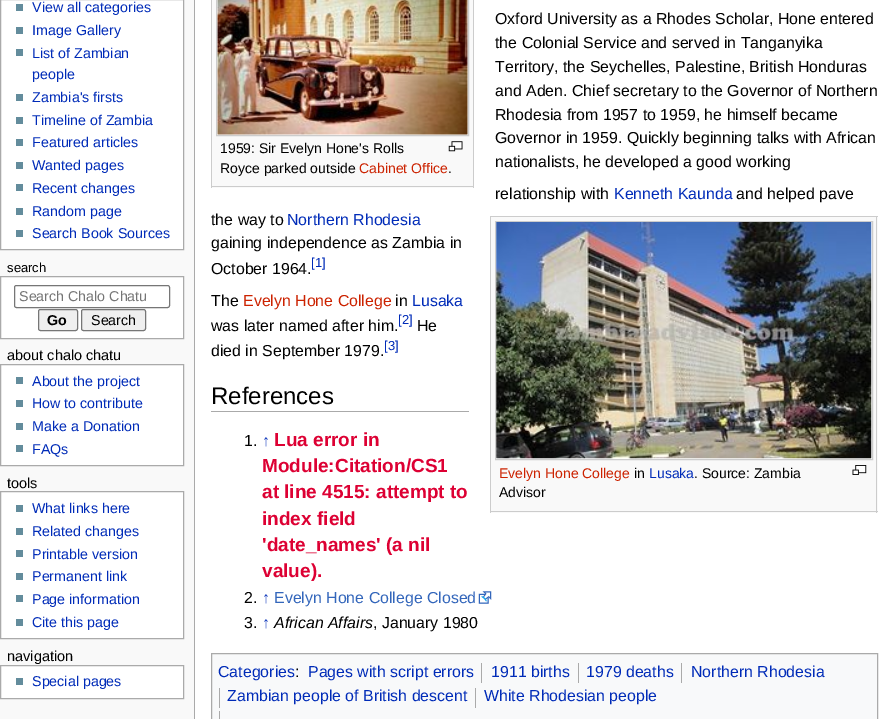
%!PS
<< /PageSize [893 719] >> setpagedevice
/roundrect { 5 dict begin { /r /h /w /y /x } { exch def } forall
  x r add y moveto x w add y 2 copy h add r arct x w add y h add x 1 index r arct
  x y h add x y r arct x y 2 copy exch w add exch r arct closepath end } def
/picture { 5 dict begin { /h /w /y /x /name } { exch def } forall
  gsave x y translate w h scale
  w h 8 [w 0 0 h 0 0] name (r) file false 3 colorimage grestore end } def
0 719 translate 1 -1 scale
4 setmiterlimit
0.976 setgray
0 0 893 719 rectfill
1 setgray
newpath 0.5 -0.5 moveto 183.5 -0.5 lineto 183.5 249.5 lineto 0.5 249.5 lineto closepath gsave fill grestore
0.667 setgray
stroke
0.388 0.549 0.612 setrgbcolor
16 4 7 7 rectfill
/LiberationSans-Regular [14.25 0 0 -14.25 0 0] selectfont
0 0.169 0.722 setrgbcolor
32 12 moveto (View all categories) show
0.388 0.549 0.612 setrgbcolor
16 27 7 7 rectfill
0 0.169 0.722 setrgbcolor
32 35 moveto (Image Gallery) show
0.388 0.549 0.612 setrgbcolor
16 49 7 7 rectfill
0 0.169 0.722 setrgbcolor
32 58 moveto (List of Zambian) show
32 79 moveto (people) show
0.388 0.549 0.612 setrgbcolor
16 94 7 7 rectfill
0 0.169 0.722 setrgbcolor
32 102 moveto (Zambia's firsts) show
0.388 0.549 0.612 setrgbcolor
16 117 7 7 rectfill
0 0.169 0.722 setrgbcolor
32 125 moveto (Timeline of Zambia) show
0.388 0.549 0.612 setrgbcolor
16 139 7 7 rectfill
0 0.169 0.722 setrgbcolor
32 147 moveto (Featured articles) show
0.388 0.549 0.612 setrgbcolor
16 162 7 7 rectfill
0 0.169 0.722 setrgbcolor
32 170 moveto (Wanted pages) show
0.388 0.549 0.612 setrgbcolor
16 184 7 7 rectfill
0 0.169 0.722 setrgbcolor
32 193 moveto (Recent changes) show
0.388 0.549 0.612 setrgbcolor
16 208 7 7 rectfill
0 0.169 0.722 setrgbcolor
32 216 moveto (Random page) show
0.388 0.549 0.612 setrgbcolor
16 230 7 7 rectfill
0 0.169 0.722 setrgbcolor
32 238 moveto (Search Book Sources) show
/LiberationSans-Regular [13 0 0 -13 0 0] selectfont
0 setgray
7 272 moveto (search) show
1 setgray
newpath 0.5 276.5 moveto 183.5 276.5 lineto 183.5 338.5 lineto 0.5 338.5 lineto closepath gsave fill grestore
0.667 setgray
stroke
0.463 setgray
14.5 285.5 155 22 2 roundrect stroke
/LiberationSans-Regular [14.25 0 0 -14.25 0 0] selectfont
0.459 setgray
19 301 moveto (Search Chalo Chatu) show
0.937 setgray
38.5 309.5 39 21 2 roundrect gsave fill grestore
0.463 setgray
stroke
/LiberationSans-Bold [14.25 0 0 -14.25 0 0] selectfont
0 setgray
47 325 moveto (Go) show
0.937 setgray
81.5 309.5 64 21 2 roundrect gsave fill grestore
0.463 setgray
stroke
/LiberationSans-Regular [14.25 0 0 -14.25 0 0] selectfont
0 setgray
91 325 moveto (Search) show
/LiberationSans-Regular [14.5 0 0 -14.5 0 0] selectfont
7 360 moveto (about chalo chatu) show
1 setgray
newpath 0.5 364.5 moveto 183.5 364.5 lineto 183.5 465.5 lineto 0.5 465.5 lineto closepath gsave fill grestore
0.667 setgray
stroke
0.388 0.549 0.612 setrgbcolor
16 377 7 7 rectfill
/LiberationSans-Regular [14.25 0 0 -14.25 0 0] selectfont
0 0.169 0.722 setrgbcolor
32 386 moveto (About the project) show
0.388 0.549 0.612 setrgbcolor
16 400 7 7 rectfill
0 0.169 0.722 setrgbcolor
32 408 moveto (How to contribute) show
0.388 0.549 0.612 setrgbcolor
16 423 7 7 rectfill
0 0.169 0.722 setrgbcolor
32 431 moveto (Make a Donation) show
0.388 0.549 0.612 setrgbcolor
16 445 7 7 rectfill
0 0.169 0.722 setrgbcolor
32 454 moveto (FAQs) show
/LiberationSans-Regular [14.5 0 0 -14.5 0 0] selectfont
0 setgray
7 488 moveto (tools) show
1 setgray
newpath 0.5 491.5 moveto 183.5 491.5 lineto 183.5 638.5 lineto 0.5 638.5 lineto closepath gsave fill grestore
0.667 setgray
stroke
0.388 0.549 0.612 setrgbcolor
16 505 7 7 rectfill
/LiberationSans-Regular [14.25 0 0 -14.25 0 0] selectfont
0 0.169 0.722 setrgbcolor
32 513 moveto (What links here) show
0.388 0.549 0.612 setrgbcolor
16 528 7 7 rectfill
0 0.169 0.722 setrgbcolor
32 536 moveto (Related changes) show
0.388 0.549 0.612 setrgbcolor
16 550 7 7 rectfill
0 0.169 0.722 setrgbcolor
32 559 moveto (Printable version) show
0.388 0.549 0.612 setrgbcolor
16 573 7 7 rectfill
0 0.169 0.722 setrgbcolor
32 581 moveto (Permanent link) show
0.388 0.549 0.612 setrgbcolor
16 595 7 7 rectfill
0 0.169 0.722 setrgbcolor
32 604 moveto (Page information) show
0.388 0.549 0.612 setrgbcolor
16 619 7 7 rectfill
0 0.169 0.722 setrgbcolor
32 627 moveto (Cite this page) show
/LiberationSans-Regular [14.5 0 0 -14.5 0 0] selectfont
0 setgray
7 661 moveto (navigation) show
1 setgray
newpath 0.5 665.5 moveto 183.5 665.5 lineto 183.5 698.5 lineto 0.5 698.5 lineto closepath gsave fill grestore
0.667 setgray
stroke
0.388 0.549 0.612 setrgbcolor
16 678 7 7 rectfill
/LiberationSans-Regular [14.25 0 0 -14.25 0 0] selectfont
0 0.169 0.722 setrgbcolor
32 686 moveto (Special pages) show
1 setgray
195 0 698 719 rectfill
0.667 setgray
194 0 1 719 rectfill
0.976 setgray
212 0 261 188 rectfill
0.8 setgray
211 186 263 1 rectfill
473 0 1 188 rectfill
211 0 1 188 rectfill
1 setgray
newpath 216.5 -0.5 moveto 468.5 -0.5 lineto 468.5 135.5 lineto 216.5 135.5 lineto closepath gsave fill grestore
0.8 setgray
stroke
(img1.rgb) 217 0 251 135 picture
(img2.rgb) 448 141 15 11 picture
/LiberationSans-Regular [14 0 0 -14 0 0] selectfont
0 setgray
220 153 moveto (1959: Sir Evelyn Hone's Rolls) show
220 173 moveto (Royce parked outside) show
0.8 0.133 0 setrgbcolor
359 173 moveto (Cabinet Office) show
0 setgray
448 173 moveto (.) show
/LiberationSans-Regular [15.9 0 0 -15.9 0 0] selectfont
495 24 moveto (Oxford University as a Rhodes Scholar, Hone entered) show
495 48 moveto (the Colonial Service and served in Tanganyika) show
495 72 moveto (Territory, the Seychelles, Palestine, British Honduras) show
495 96 moveto (and Aden. Chief secretary to the Governor of Northern) show
495 120 moveto (Rhodesia from 1957 to 1959, he himself became) show
495 143 moveto (Governor in 1959. Quickly beginning talks with African) show
495 167 moveto (nationalists, he developed a good working) show
495 199 moveto (relationship with) show
0 0.169 0.722 setrgbcolor
614 199 moveto (Kenneth Kaunda) show
0 setgray
736 199 moveto (and helped pave) show
211 225 moveto (the way to) show
0 0.169 0.722 setrgbcolor
287 225 moveto (Northern Rhodesia) show
0 setgray
211 248 moveto (gaining independence as Zambia in) show
211 274 moveto (October 1964.) show
/LiberationSans-Regular [13 0 0 -13 0 0] selectfont
0 0.169 0.722 setrgbcolor
311 267 moveto ([1]) show
/LiberationSans-Regular [15.9 0 0 -15.9 0 0] selectfont
0 setgray
211 306 moveto (The) show
0.8 0.133 0 setrgbcolor
243 306 moveto (Evelyn Hone College) show
0 setgray
395 306 moveto (in) show
0 0.169 0.722 setrgbcolor
412 306 moveto (Lusaka) show
0 setgray
211 331 moveto (was later named after him.) show
/LiberationSans-Regular [13 0 0 -13 0 0] selectfont
0 0.169 0.722 setrgbcolor
398 324 moveto ([2]) show
/LiberationSans-Regular [15.9 0 0 -15.9 0 0] selectfont
0 setgray
417 331 moveto (He) show
211 356 moveto (died in September 1979.) show
/LiberationSans-Regular [13 0 0 -13 0 0] selectfont
0 0.169 0.722 setrgbcolor
384 350 moveto ([3]) show
0.667 setgray
211 411 258 1 rectfill
/LiberationSans-Regular [24 0 0 -24 0 0] selectfont
0 setgray
211 404 moveto (References) show
/LiberationSans-Regular [15.9 0 0 -15.9 0 0] selectfont
244 446 moveto (1.) show
0 0.169 0.722 setrgbcolor
262 446 moveto (↑) show
/LiberationSans-Bold [19 0 0 -19 0 0] selectfont
0.867 0 0.2 setrgbcolor
274 446 moveto (Lua error in) show
262 472 moveto (Module:Citation/CS1) show
262 498 moveto (at line 4515: attempt to) show
262 525 moveto (index field) show
262 551 moveto ('date_names' \(a nil) show
262 577 moveto (value\).) show
/LiberationSans-Regular [15.9 0 0 -15.9 0 0] selectfont
0 setgray
244 603 moveto (2.) show
0 0.169 0.722 setrgbcolor
262 603 moveto (↑) show
0.2 0.4 0.733 setrgbcolor
274 603 moveto (Evelyn Hone College Closed) show
(img3.rgb) 478 591 14 13 picture
0 setgray
244 628 moveto (3.) show
0 0.169 0.722 setrgbcolor
262 628 moveto (↑) show
/LiberationSans-Italic [15.9 0 0 -15.9 0 0] selectfont
0 setgray
274 628 moveto (African Affairs) show
/LiberationSans-Regular [15.9 0 0 -15.9 0 0] selectfont
373 628 moveto (, January 1980) show
0.976 setgray
491 217 387 296 rectfill
0.8 setgray
490 216 388 1 rectfill
490 511 388 1 rectfill
876 216 1 297 rectfill
490 216 1 297 rectfill
1 setgray
newpath 495.5 221.5 moveto 872.5 221.5 lineto 872.5 459.5 lineto 495.5 459.5 lineto closepath gsave fill grestore
0.8 setgray
stroke
(img4.rgb) 496 222 376 237 picture
(img5.rgb) 852 465 15 10 picture
/LiberationSans-Regular [14 0 0 -14 0 0] selectfont
0.8 0.133 0 setrgbcolor
499 478 moveto (Evelyn Hone College) show
0 setgray
634 478 moveto (in) show
0 0.169 0.722 setrgbcolor
649 478 moveto (Lusaka) show
0 setgray
694 478 moveto (. Source: Zambia) show
499 497 moveto (Advisor) show
0.973 0.976 0.98 setrgbcolor
newpath 211.5 653.5 moveto 877.5 653.5 lineto 877.5 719.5 lineto 211.5 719.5 lineto closepath gsave fill grestore
0.667 setgray
stroke
/LiberationSans-Regular [15.9 0 0 -15.9 0 0] selectfont
0 0.169 0.722 setrgbcolor
218 677 moveto (Categories) show
308 677 moveto (Pages with script errors) show
0.667 setgray
481 663 1 20 rectfill
0 0.169 0.722 setrgbcolor
491 677 moveto (1911 births) show
0.667 setgray
578 663 1 20 rectfill
0 0.169 0.722 setrgbcolor
586 677 moveto (1979 deaths) show
0.667 setgray
681 663 1 20 rectfill
0 0.169 0.722 setrgbcolor
691 677 moveto (Northern Rhodesia) show
0.667 setgray
219 688 1 20 rectfill
0 0.169 0.722 setrgbcolor
227 701 moveto (Zambian people of British descent) show
0.667 setgray
475 688 1 20 rectfill
0 0.169 0.722 setrgbcolor
484 701 moveto (White Rhodesian people) show
0.667 setgray
219 711 1 8 rectfill
0 setgray
295 677 moveto (:) show
showpage
